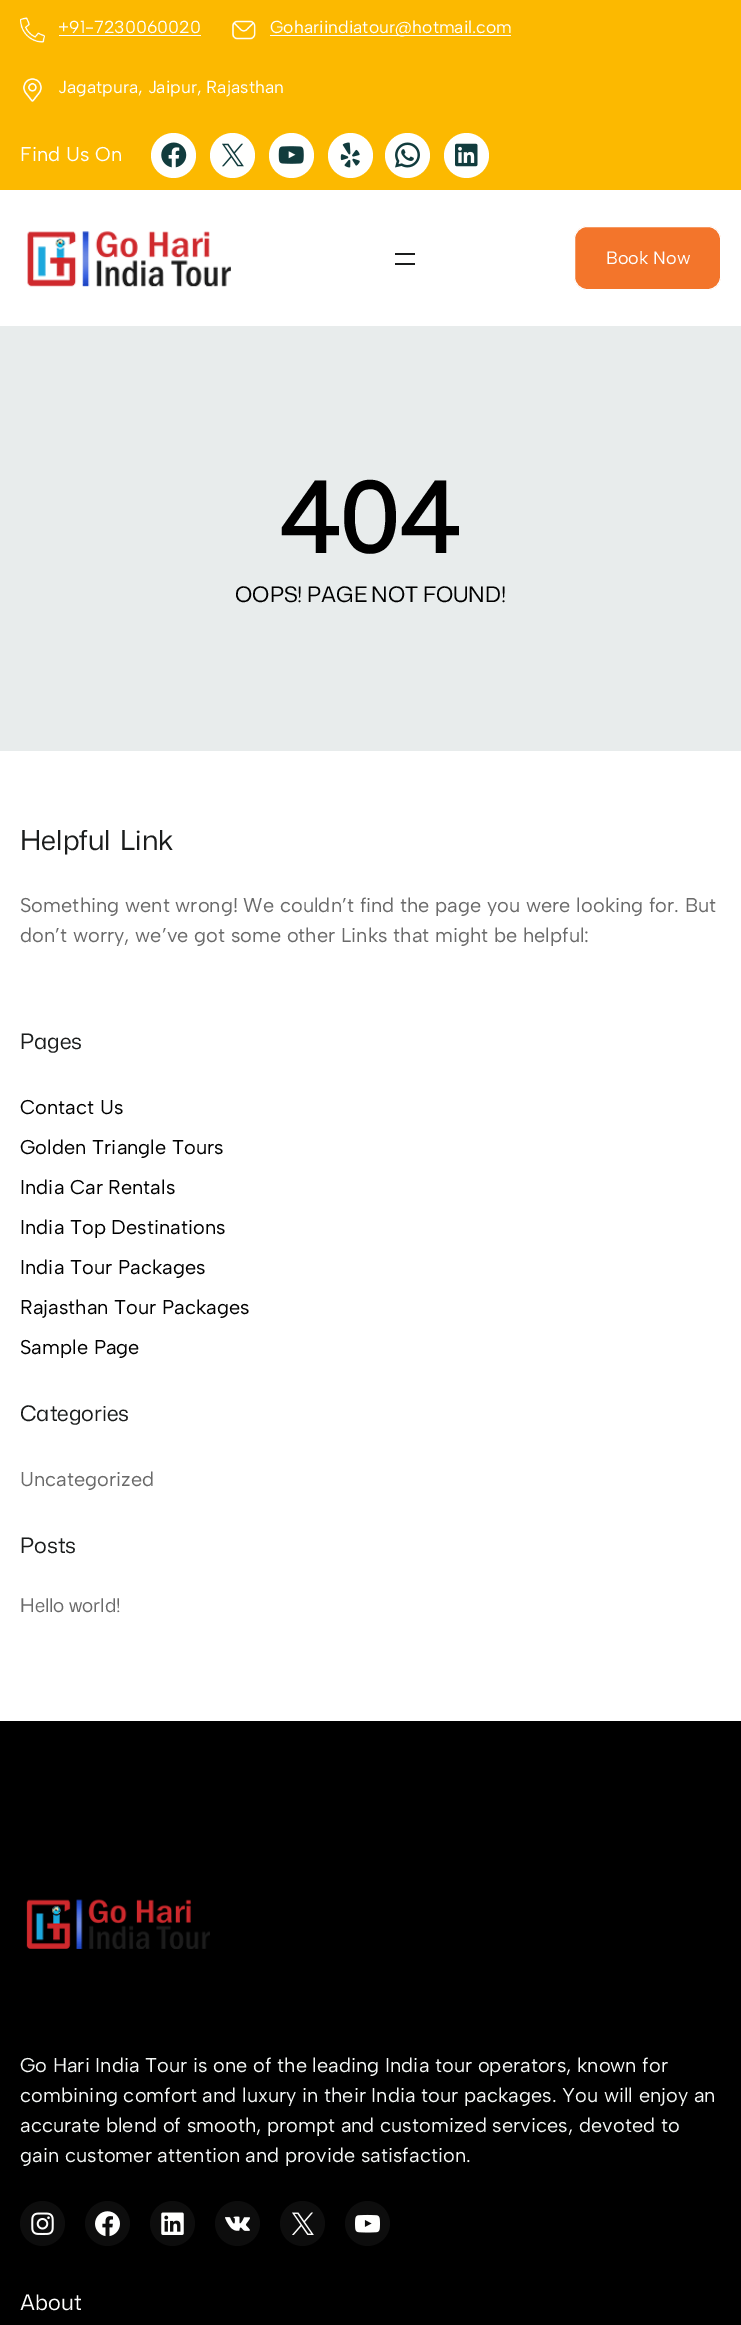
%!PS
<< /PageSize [741 2325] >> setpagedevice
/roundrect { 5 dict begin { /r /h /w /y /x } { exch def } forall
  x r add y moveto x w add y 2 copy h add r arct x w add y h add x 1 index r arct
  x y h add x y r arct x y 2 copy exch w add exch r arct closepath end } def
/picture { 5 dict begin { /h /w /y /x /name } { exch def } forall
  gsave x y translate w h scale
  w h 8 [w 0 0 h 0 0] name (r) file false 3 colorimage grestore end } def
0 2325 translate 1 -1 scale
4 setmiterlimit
1 setgray
0 0 741 2325 rectfill
0.988 0.725 0 setrgbcolor
0 0 741 190 rectfill
(img1.rgb) 20 17 25 26 picture
/AlbertSans-Regular [17.5 0 0 -17.5 0 0] selectfont
1 1 0.996 setrgbcolor
58 33 moveto (+91-7230060020) show
59 35 142 1 rectfill
(img2.rgb) 232 20 24 20 picture
270 35 241 1 rectfill
270 33 moveto (Gohariindiatour@hotmail.com) show
(img3.rgb) 23 78 19 24 picture
58 93 moveto (Jagatpura, Jaipur, Rajasthan) show
/AlbertSans-Regular [20 0 0 -20 0 0] selectfont
20 161 moveto (Find Us On) show
newpath 173.5 155.5 22.5 0 360 arc closepath fill
(img4.rgb) 161 142 26 26 picture
newpath 232.5 155.5 22.5 0 360 arc closepath fill
(img5.rgb) 222 143 22 24 picture
newpath 291.5 155.5 22.5 0 360 arc closepath fill
(img6.rgb) 278 146 26 18 picture
newpath 350.5 155.5 22.5 0 360 arc closepath fill
(img7.rgb) 340 142 20 26 picture
newpath 407.5 155.5 22.5 0 360 arc closepath fill
(img8.rgb) 395 142 25 26 picture
newpath 466.5 155.5 22.5 0 360 arc closepath fill
(img9.rgb) 455 143 23 24 picture
(img10.rgb) 27 231 204 56 picture
0.106 0.114 0.114 setrgbcolor
395 253 20 2 rectfill
395 263 20 2 rectfill
0.953 0.459 0.169 setrgbcolor
574.5 226.5 146 63 12.5 roundrect gsave fill grestore
1 setgray
stroke
/AlbertSans-Regular [18 0 0 -18 0 0] selectfont
1 1 0.996 setrgbcolor
606 264 moveto (Book Now) show
0.91 0.925 0.925 setrgbcolor
0 326 741 425 rectfill
/MonaSans-Bold [97 0 0 -97 0 0] selectfont
0 setgray
279 553 moveto (404) show
/MonaSans-Regular [21.4 0 0 -21.4 0 0] selectfont
235 602 moveto -0.5 0 32 (OOPS! PAGE NOT FOUND!) widthshow
/MonaSans-Regular [27.5 0 0 -27.5 0 0] selectfont
0.106 0.114 0.114 setrgbcolor
20 850 moveto 3 0 32 (Helpful Link) widthshow
/AlbertSans-Regular [20 0 0 -20 0 0] selectfont
0.416 setgray
20 912 moveto (Something went wrong! We couldn’t find the page you were looking for. But) show
20 942 moveto (don’t worry, we’ve got some other Links that might be helpful:) show
/MonaSans-Regular [21.4 0 0 -21.4 0 0] selectfont
0.106 0.114 0.114 setrgbcolor
20 1049 moveto (Pages) show
/AlbertSans-Regular [20 0 0 -20 0 0] selectfont
0 setgray
20 1114 moveto (Contact Us) show
20 1154 moveto (Golden Triangle Tours) show
20 1194 moveto (India Car Rentals) show
20 1234 moveto (India Top Destinations) show
20 1274 moveto (India Tour Packages) show
20 1314 moveto (Rajasthan Tour Packages) show
20 1354 moveto (Sample Page) show
/MonaSans-Regular [21.4 0 0 -21.4 0 0] selectfont
0.106 0.114 0.114 setrgbcolor
20 1421 moveto (Categories) show
/AlbertSans-Regular [20 0 0 -20 0 0] selectfont
0.416 setgray
20 1486 moveto (Uncategorized) show
/MonaSans-Regular [21.4 0 0 -21.4 0 0] selectfont
0.106 0.114 0.114 setrgbcolor
20 1553 moveto (Posts) show
/MonaSans-Regular [18.75 0 0 -18.75 0 0] selectfont
0.416 setgray
20 1612 moveto (Hello world!) show
0 setgray
0 1721 741 604 rectfill
(img11.rgb) 26 1899 184 50 picture
/AlbertSans-Regular [20 0 0 -20 0 0] selectfont
0.961 0.973 0.965 setrgbcolor
20 2072 moveto (Go Hari India Tour is one of the leading India tour operators, known for) show
20 2102 moveto (combining comfort and luxury in their India tour packages. You will enjoy an) show
20 2132 moveto (accurate blend of smooth, prompt and customized services, devoted to) show
20 2162 moveto (gain customer attention and provide satisfaction.) show
0.051 setgray
newpath 42.5 2223.5 22.5 0 360 arc closepath fill
(img12.rgb) 31 2212 23 23 picture
newpath 107.5 2223.5 22.5 0 360 arc closepath fill
(img13.rgb) 95 2211 25 26 picture
newpath 172.5 2223.5 22.5 0 360 arc closepath fill
(img14.rgb) 161 2212 23 23 picture
newpath 237.5 2223.5 22.5 0 360 arc closepath fill
(img15.rgb) 225 2216 25 15 picture
newpath 302.5 2223.5 22.5 0 360 arc closepath fill
(img16.rgb) 292 2212 22 23 picture
newpath 367.5 2223.5 22.5 0 360 arc closepath fill
(img17.rgb) 355 2214 25 19 picture
/MonaSans-Regular [21.4 0 0 -21.4 0 0] selectfont
1 1 0.996 setrgbcolor
20 2310 moveto (About) show
showpage
